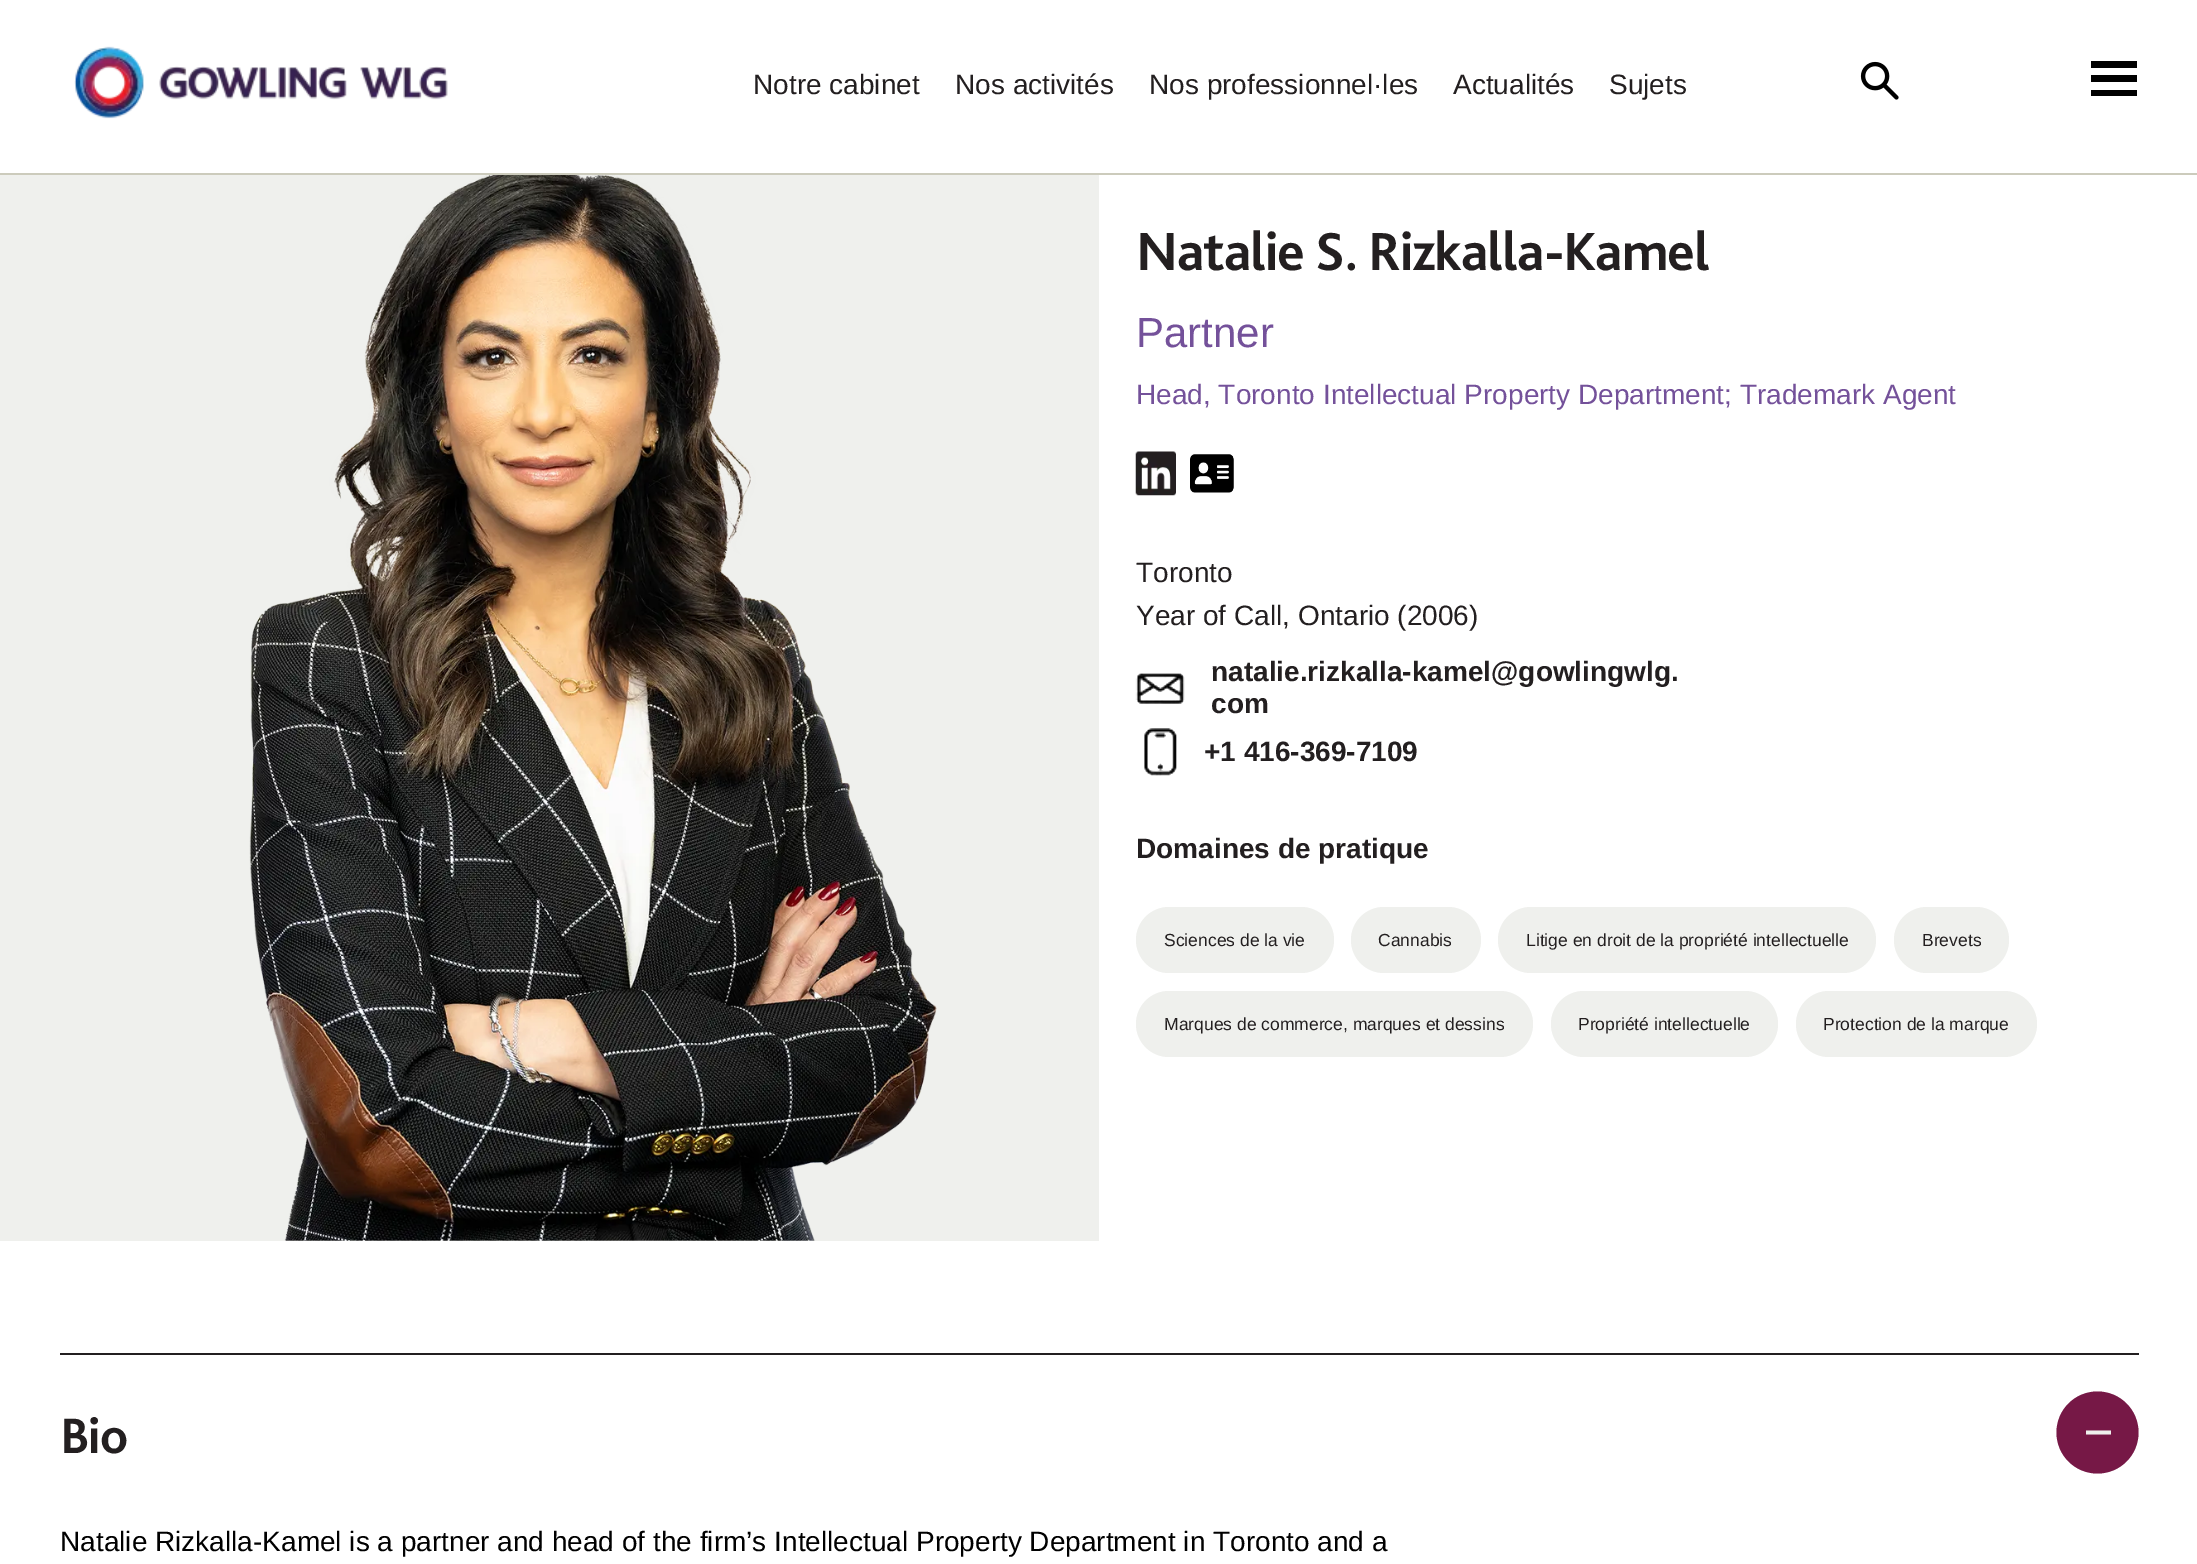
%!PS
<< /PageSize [2197 1564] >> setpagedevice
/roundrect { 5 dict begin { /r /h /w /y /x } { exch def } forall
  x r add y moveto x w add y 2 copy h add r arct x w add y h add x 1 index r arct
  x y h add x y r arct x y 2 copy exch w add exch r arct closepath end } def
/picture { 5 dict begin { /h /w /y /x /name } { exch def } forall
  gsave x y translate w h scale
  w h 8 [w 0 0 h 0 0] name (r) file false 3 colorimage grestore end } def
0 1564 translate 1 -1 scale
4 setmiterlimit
1 setgray
0 0 2197 1564 rectfill
0.8 0.796 0.737 setrgbcolor
0 173 2197 2 rectfill
(img1.rgb) 74 46 374 73 picture
/LiberationSans-Regular [28 0 0 -28 0 0] selectfont
0.137 0.122 0.125 setrgbcolor
753 94 moveto (Notre cabinet) show
955 94 moveto (Nos activités) show
1149 94 moveto (Nos professionnel·les) show
1453 94 moveto (Actualités) show
1609 94 moveto (Sujets) show
(img2.rgb) 1860 61 39 39 picture
0 setgray
newpath 2091 61 moveto 2091 68 lineto 2137 68 lineto 2137 61 lineto closepath 2091 75 moveto 2091 82 lineto 2137 82 lineto 2137 75 lineto closepath 2091 90 moveto 2091 96 lineto 2137 96 lineto 2137 90 lineto closepath fill
0.937 0.941 0.929 setrgbcolor
0 175 1099 1066 rectfill
(img3.rgb) 249 175 688 1066 picture
/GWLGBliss-Bold [56 0 0 -56 0 0] selectfont
0.137 0.122 0.125 setrgbcolor
1136 270 moveto -1.1 0 (Natalie S. Rizkalla-Kamel) ashow
/LiberationSans-Regular [42 0 0 -42 0 0] selectfont
0.455 0.318 0.604 setrgbcolor
1136 347 moveto (Partner) show
/LiberationSans-Regular [28 0 0 -28 0 0] selectfont
1136 404 moveto (Head, Toronto Intellectual Property Department; Trademark Agent) show
(img4.rgb) 1135 451 41 45 picture
(img5.rgb) 1190 454 44 39 picture
0.137 0.122 0.125 setrgbcolor
1136 582 moveto (Toronto) show
1136 625 moveto (Year of Call, Ontario \(2006\)) show
(img6.rgb) 1135 673 50 31 picture
/LiberationSans-Bold [28 0 0 -28 0 0] selectfont
1211 681 moveto (natalie.rizkalla-kamel@gowlingwlg.) show
1211 713 moveto (com) show
(img7.rgb) 1144 728 33 48 picture
1204 761 moveto (+1 416-369-7109) show
1136 858 moveto (Domaines de pratique) show
0.937 0.941 0.929 setrgbcolor
1136 907 198 66 33 roundrect fill
/LiberationSans-Regular [17.5 0 0 -17.5 0 0] selectfont
0.137 0.122 0.125 setrgbcolor
1164 946 moveto (Sciences de la vie) show
0.937 0.941 0.929 setrgbcolor
1351 907 130 66 33 roundrect fill
0.137 0.122 0.125 setrgbcolor
1378 946 moveto (Cannabis) show
0.937 0.941 0.929 setrgbcolor
1498 907 378 66 33 roundrect fill
0.137 0.122 0.125 setrgbcolor
1526 946 moveto (Litige en droit de la propriété intellectuelle) show
0.937 0.941 0.929 setrgbcolor
1894 907 115 66 33 roundrect fill
0.137 0.122 0.125 setrgbcolor
1922 946 moveto (Brevets) show
0.937 0.941 0.929 setrgbcolor
1136 991 397 66 33 roundrect fill
0.137 0.122 0.125 setrgbcolor
1164 1030 moveto (Marques de commerce, marques et dessins) show
0.937 0.941 0.929 setrgbcolor
1551 991 227 66 33 roundrect fill
0.137 0.122 0.125 setrgbcolor
1578 1030 moveto (Propriété intellectuelle) show
0.937 0.941 0.929 setrgbcolor
1796 991 241 66 33 roundrect fill
0.137 0.122 0.125 setrgbcolor
1823 1030 moveto (Protection de la marque) show
60 1353 2079 2 rectfill
/GWLGBliss-Bold [52 0 0 -52 0 0] selectfont
60 1453 moveto -1.1 0 (Bio) ashow
0.463 0.094 0.275 setrgbcolor
newpath 2097.5 1432.5 41 0 360 arc closepath fill
0.937 0.941 0.929 setrgbcolor
newpath 2086 1434.5 moveto 2086 1430.5 lineto 2111 1430.5 lineto 2111 1434.5 lineto 2089.5 1434.5 lineto closepath fill
/LiberationSans-Regular [28 0 0 -28 0 0] selectfont
0 setgray
60 1551 moveto (Natalie Rizkalla-Kamel is a partner and head of the firm’s Intellectual Property Department in Toronto and a) show
showpage
